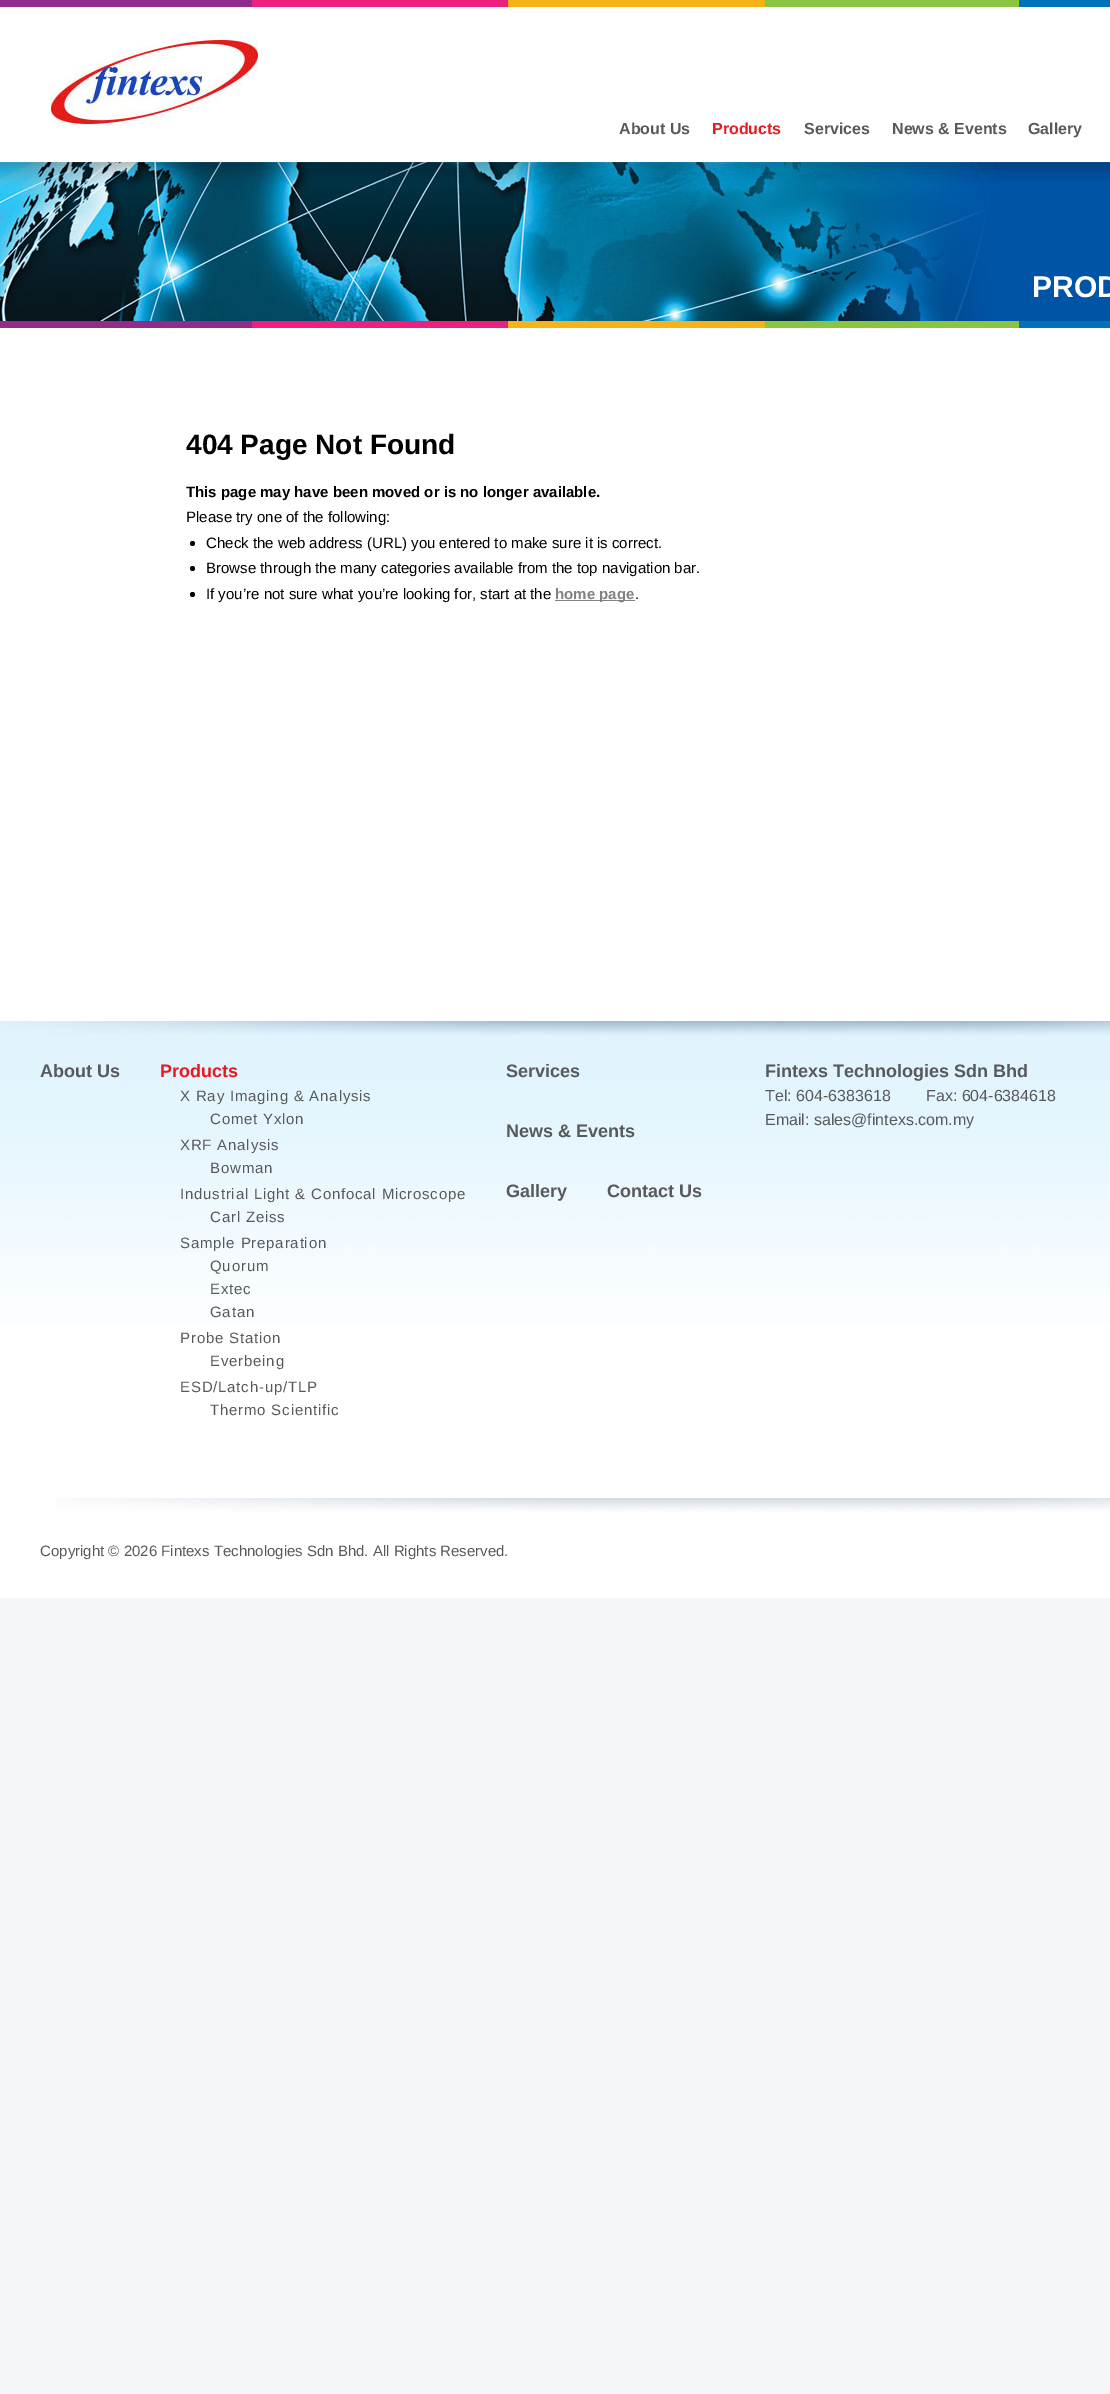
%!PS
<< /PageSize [1110 2394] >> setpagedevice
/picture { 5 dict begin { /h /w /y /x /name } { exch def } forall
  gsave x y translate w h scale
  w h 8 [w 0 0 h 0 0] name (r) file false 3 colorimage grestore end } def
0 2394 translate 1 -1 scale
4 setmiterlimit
0.957 0.969 0.969 setrgbcolor
0 0 1110 2394 rectfill
1 setgray
0 7 1110 155 rectfill
(img1.rgb) 0 0 1110 7 picture
(img2.rgb) 50 38 208 88 picture
/LiberationSans-Bold [16 0 0 -16 0 0] selectfont
0.345 0.349 0.357 setrgbcolor
619 134 moveto (About Us) show
0.906 0.102 0.122 setrgbcolor
712 134 moveto (Products) show
0.345 0.349 0.357 setrgbcolor
804 134 moveto (Services) show
892 134 moveto (News & Events) show
1028 134 moveto (Gallery) show
(img3.rgb) 0 162 1110 159 picture
/LiberationSans-Bold [30 0 0 -30 0 0] selectfont
1 setgray
1032 297 moveto (PROD) show
0 328 1110 693 rectfill
(img1.rgb) 0 321 1110 7 picture
/LiberationSans-Bold [28 0 0 -28 0 0] selectfont
0 setgray
186 454 moveto (404 Page Not Found) show
/LiberationSans-Bold [15 0 0 -15 0 0] selectfont
186 497 moveto (This page may have been moved or is no longer available.) show
/LiberationSans-Regular [15 0 0 -15 0 0] selectfont
186 522 moveto (Please try one of the following:) show
newpath 192.5 543.5 2.5 0 360 arc closepath fill
206 548 moveto (Check the web address \(URL\) you entered to make sure it is correct.) show
newpath 192.5 568.5 2.5 0 360 arc closepath fill
206 573 moveto (Browse through the many categories available from the top navigation bar.) show
newpath 192.5 594.5 2.5 0 360 arc closepath fill
206 599 moveto (If you’re not sure what you’re looking for, start at the) show
0.506 setgray
555 600 80 1 rectfill
/LiberationSans-Bold [15 0 0 -15 0 0] selectfont
555 599 moveto (home page) show
/LiberationSans-Regular [15 0 0 -15 0 0] selectfont
0 setgray
635 599 moveto (.) show
1 setgray
0 1325 1110 273 rectfill
(img4.rgb) 0 1021 1110 304 picture
/LiberationSans-Bold [18 0 0 -18 0 0] selectfont
0.345 0.349 0.357 setrgbcolor
40 1077 moveto (About Us) show
0.906 0.102 0.122 setrgbcolor
160 1077 moveto (Products) show
/LiberationSans-Regular [15 0 0 -15 0 0] selectfont
0.345 0.349 0.357 setrgbcolor
180 1101 moveto 0.8 0 (X Ray Imaging & Analysis) ashow
210 1124 moveto 0.8 0 (Comet Yxlon) ashow
180 1150 moveto 0.8 0 (XRF Analysis) ashow
210 1173 moveto 0.8 0 (Bowman) ashow
180 1199 moveto 0.8 0 (Industrial Light & Confocal Microscope) ashow
210 1222 moveto 0.8 0 (Carl Zeiss) ashow
180 1248 moveto 0.8 0 (Sample Preparation) ashow
210 1271 moveto 0.8 0 (Quorum) ashow
210 1294 moveto 0.8 0 (Extec) ashow
210 1317 moveto 0.8 0 (Gatan) ashow
180 1343 moveto 0.8 0 (Probe Station) ashow
210 1366 moveto 0.8 0 (Everbeing) ashow
180 1392 moveto 0.8 0 (ESD/Latch-up/TLP) ashow
210 1415 moveto 0.8 0 (Thermo Scientific) ashow
/LiberationSans-Bold [18 0 0 -18 0 0] selectfont
506 1077 moveto (Services) show
506 1137 moveto (News & Events) show
506 1197 moveto (Gallery) show
607 1197 moveto (Contact Us) show
765 1077 moveto (Fintexs Technologies Sdn Bhd) show
/LiberationSans-Regular [16 0 0 -16 0 0] selectfont
765 1101 moveto (Tel: 604-6383618        Fax: 604-6384618) show
765 1125 moveto (Email: sales@fintexs.com.my) show
(img5.rgb) 56 1498 1054 14 picture
/LiberationSans-Regular [15 0 0 -15 0 0] selectfont
40 1556 moveto (Copyright © 2026 Fintexs Technologies Sdn Bhd. All Rights Reserved.) show
showpage
